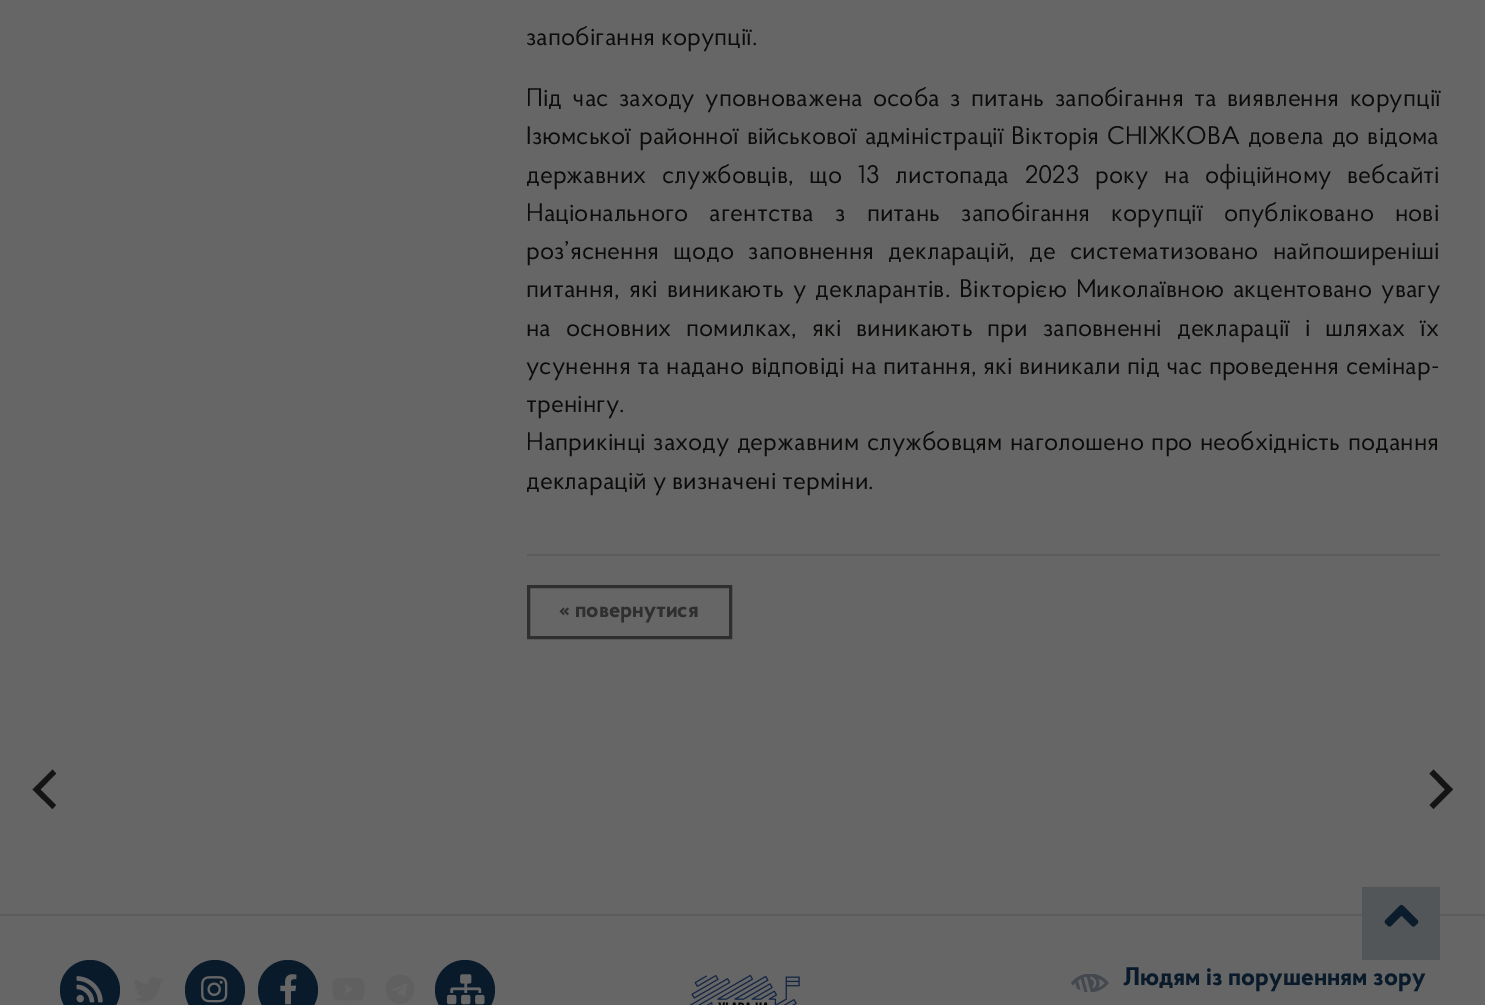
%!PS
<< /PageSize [1485 1005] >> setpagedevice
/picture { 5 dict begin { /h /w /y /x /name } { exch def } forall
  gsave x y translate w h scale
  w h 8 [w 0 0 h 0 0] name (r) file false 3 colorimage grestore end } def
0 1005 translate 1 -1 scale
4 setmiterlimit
0.4 setgray
0 0 1485 1005 rectfill
0.325 0.337 0.345 setrgbcolor
1362 887 78 73 rectfill
/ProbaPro-Regular [25.5 0 0 -25.5 0 0] selectfont
0.047 0.047 0.043 setrgbcolor
526 45 moveto (запобігання корупції.) show
526 106 moveto 4.5 0 32 (Під час заходу уповноважена особа з питань запобігання та виявлення корупції) widthshow
526 144 moveto 2 0 32 (Ізюмської районної військової адміністрації Вікторія СНІЖКОВА довела до відома) widthshow
526 183 moveto 10 0 32 (державних службовців, що 13 листопада 2023 року на офіційному вебсайті) widthshow
526 221 moveto 15.25 0 32 (Національного агентства з питань запобігання корупції опубліковано нові) widthshow
526 259 moveto 8.5 0 32 (роз’яснення щодо заповнення декларацій, де систематизовано найпоширеніші) widthshow
526 297 moveto 3.25 0 32 (питання, які виникають у декларантів. Вікторією Миколаївною акцентовано увагу) widthshow
526 336 moveto 9 0 32 (на основних помилках, які виникають при заповненні декларації і шляхах їх) widthshow
526 374 moveto 0.75 0 32 (усунення та надано відповіді на питання, які виникали під час проведення семінар-) widthshow
526 412 moveto (тренінгу.) show
526 450 moveto 1.5 0 32 (Наприкінці заходу державним службовцям наголошено про необхідність подання) widthshow
526 489 moveto (декларацій у визначені терміни.) show
0.361 setgray
527 554 913 2 rectfill
0.184 setgray
3 setlinewidth
528.5 586.5 202 51 rectstroke
/ProbaPro-Bold [22.5 0 0 -22.5 0 0] selectfont
559 617 moveto (« повернутися) show
0.078 setgray
newpath 32.5 789.5 moveto 52.5 809 lineto 56 805 lineto 40.5 789.5 lineto 56 773.5 lineto 52.5 769.5 lineto closepath fill
newpath 1453 789.5 moveto 1433.5 769.5 lineto 1429.5 773.5 lineto 1445 789.5 lineto 1429.5 805 lineto 1433.5 809 lineto closepath fill
0.361 setgray
0 914 1485 2 rectfill
0.325 0.337 0.345 setrgbcolor
1362 914 78 2 rectfill
0.035 0.102 0.169 setrgbcolor
newpath 90 990 30 0 360 arc closepath fill
(img1.rgb) 76 976 27 27 picture
(img2.rgb) 134 977 29 25 picture
newpath 215 990 30 0 360 arc closepath fill
(img3.rgb) 201 976 27 27 picture
newpath 288 990 30 0 360 arc closepath fill
(img4.rgb) 280 974 17 31 picture
(img5.rgb) 332 978 33 23 picture
(img6.rgb) 385 975 30 29 picture
newpath 465 990 30 0 360 arc closepath fill
(img7.rgb) 447 974 38 31 picture
(img8.rgb) 689 974 111 31 picture
(img9.rgb) 1071 974 38 18 picture
/ProbaPro-Bold [25.5 0 0 -25.5 0 0] selectfont
1123 985 moveto (Людям із порушенням зору) show
(img10.rgb) 1384 904 35 23 picture
showpage
